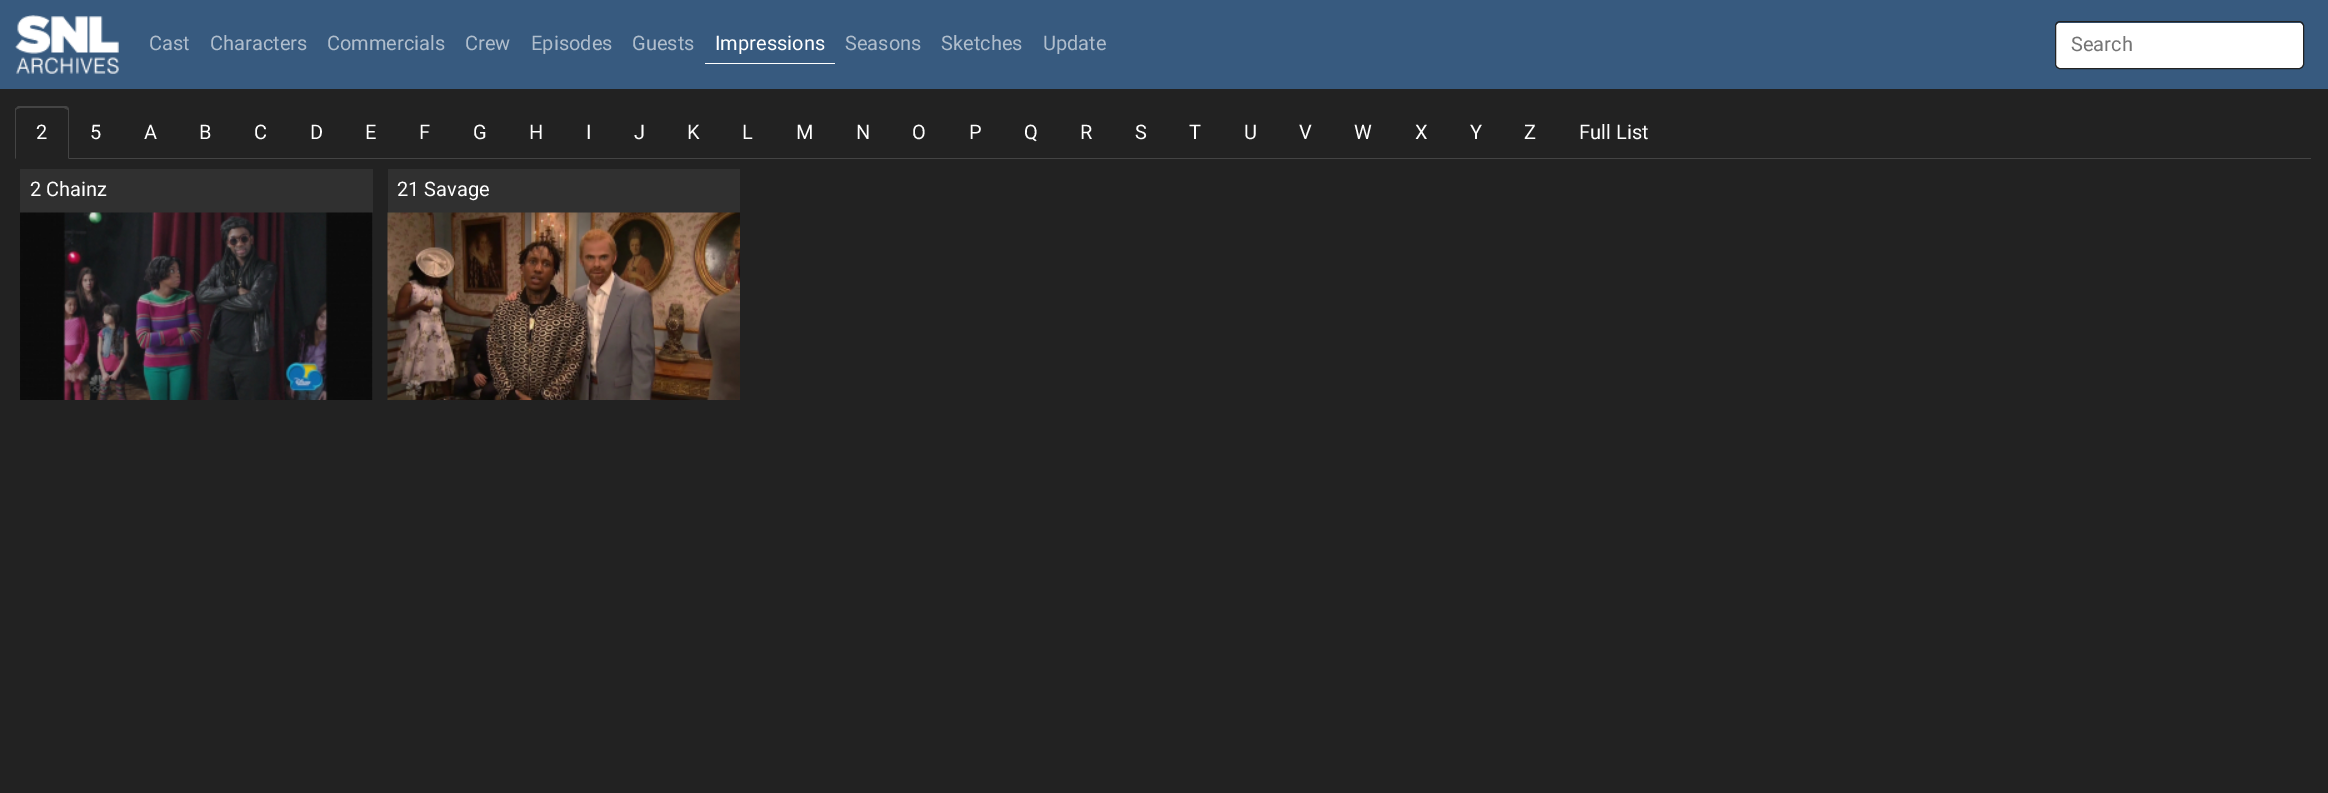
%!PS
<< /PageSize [2328 793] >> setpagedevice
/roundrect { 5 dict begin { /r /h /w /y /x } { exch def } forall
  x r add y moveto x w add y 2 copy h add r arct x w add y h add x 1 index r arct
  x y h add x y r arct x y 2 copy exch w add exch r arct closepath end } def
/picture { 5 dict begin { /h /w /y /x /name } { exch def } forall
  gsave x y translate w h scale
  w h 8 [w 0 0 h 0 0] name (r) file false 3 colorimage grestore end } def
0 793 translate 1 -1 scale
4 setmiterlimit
0.133 setgray
0 0 2328 793 rectfill
0.216 0.353 0.498 setrgbcolor
0 0 2328 89 rectfill
(img1.rgb) 15 15 104 59 picture
/Heebo-Regular [20 0 0 -20 0 0] selectfont
0.686 0.741 0.8 setrgbcolor
149 50 moveto (Cast) show
210 50 moveto (Characters) show
327 50 moveto (Commercials) show
465 50 moveto (Crew) show
531 50 moveto (Episodes) show
632 50 moveto (Guests) show
1 setgray
705 63 130 1 rectfill
715 50 moveto (Impressions) show
0.686 0.741 0.8 setrgbcolor
845 50 moveto (Seasons) show
941 50 moveto (Sketches) show
1043 50 moveto (Update) show
1 setgray
2056 23 247 45 4 roundrect fill
0.133 setgray
2055.5 21.5 248 47 4.5 roundrect stroke
0.459 setgray
2071 51 moveto (Search) show
0.267 setgray
69 158 2242 1 rectfill
newpath 20 108 moveto 17 109 lineto 16 108 lineto 18 106 lineto 66 106 lineto 68 107 lineto 66 109 lineto 64 108 lineto closepath fill
newpath 68 107 moveto 69 109 lineto 69 159 lineto 68 158 lineto 68 110 lineto 66 109 lineto closepath 15 159 moveto 16 158 lineto 16 110 lineto 17 109 lineto 16 108 lineto 15 108 15 110 15 111 curveto closepath fill
1 setgray
36 139 moveto (2) show
90 139 moveto (5) show
144 139 moveto (A) show
199 139 moveto (B) show
254 139 moveto (C) show
310 139 moveto (D) show
365 139 moveto (E) show
419 139 moveto (F) show
473 139 moveto (G) show
529 139 moveto (H) show
586 139 moveto (I) show
634 139 moveto (J) show
687 139 moveto (K) show
742 139 moveto (L) show
796 139 moveto (M) show
856 139 moveto (N) show
912 139 moveto (O) show
969 139 moveto (P) show
1024 139 moveto (Q) show
1080 139 moveto (R) show
1135 139 moveto (S) show
1189 139 moveto (T) show
1244 139 moveto (U) show
1299 139 moveto (V) show
1354 139 moveto (W) show
1415 139 moveto (X) show
1470 139 moveto (Y) show
1524 139 moveto (Z) show
1579 139 moveto (Full List) show
0.188 setgray
20 169 353 231 rectfill
1 setgray
30 196 moveto (2 Chainz) show
(img2.rgb) 20 212 353 188 picture
0.188 setgray
388 169 352 44 rectfill
1 setgray
397 196 moveto (21 Savage) show
(img3.rgb) 387 212 353 188 picture
showpage
